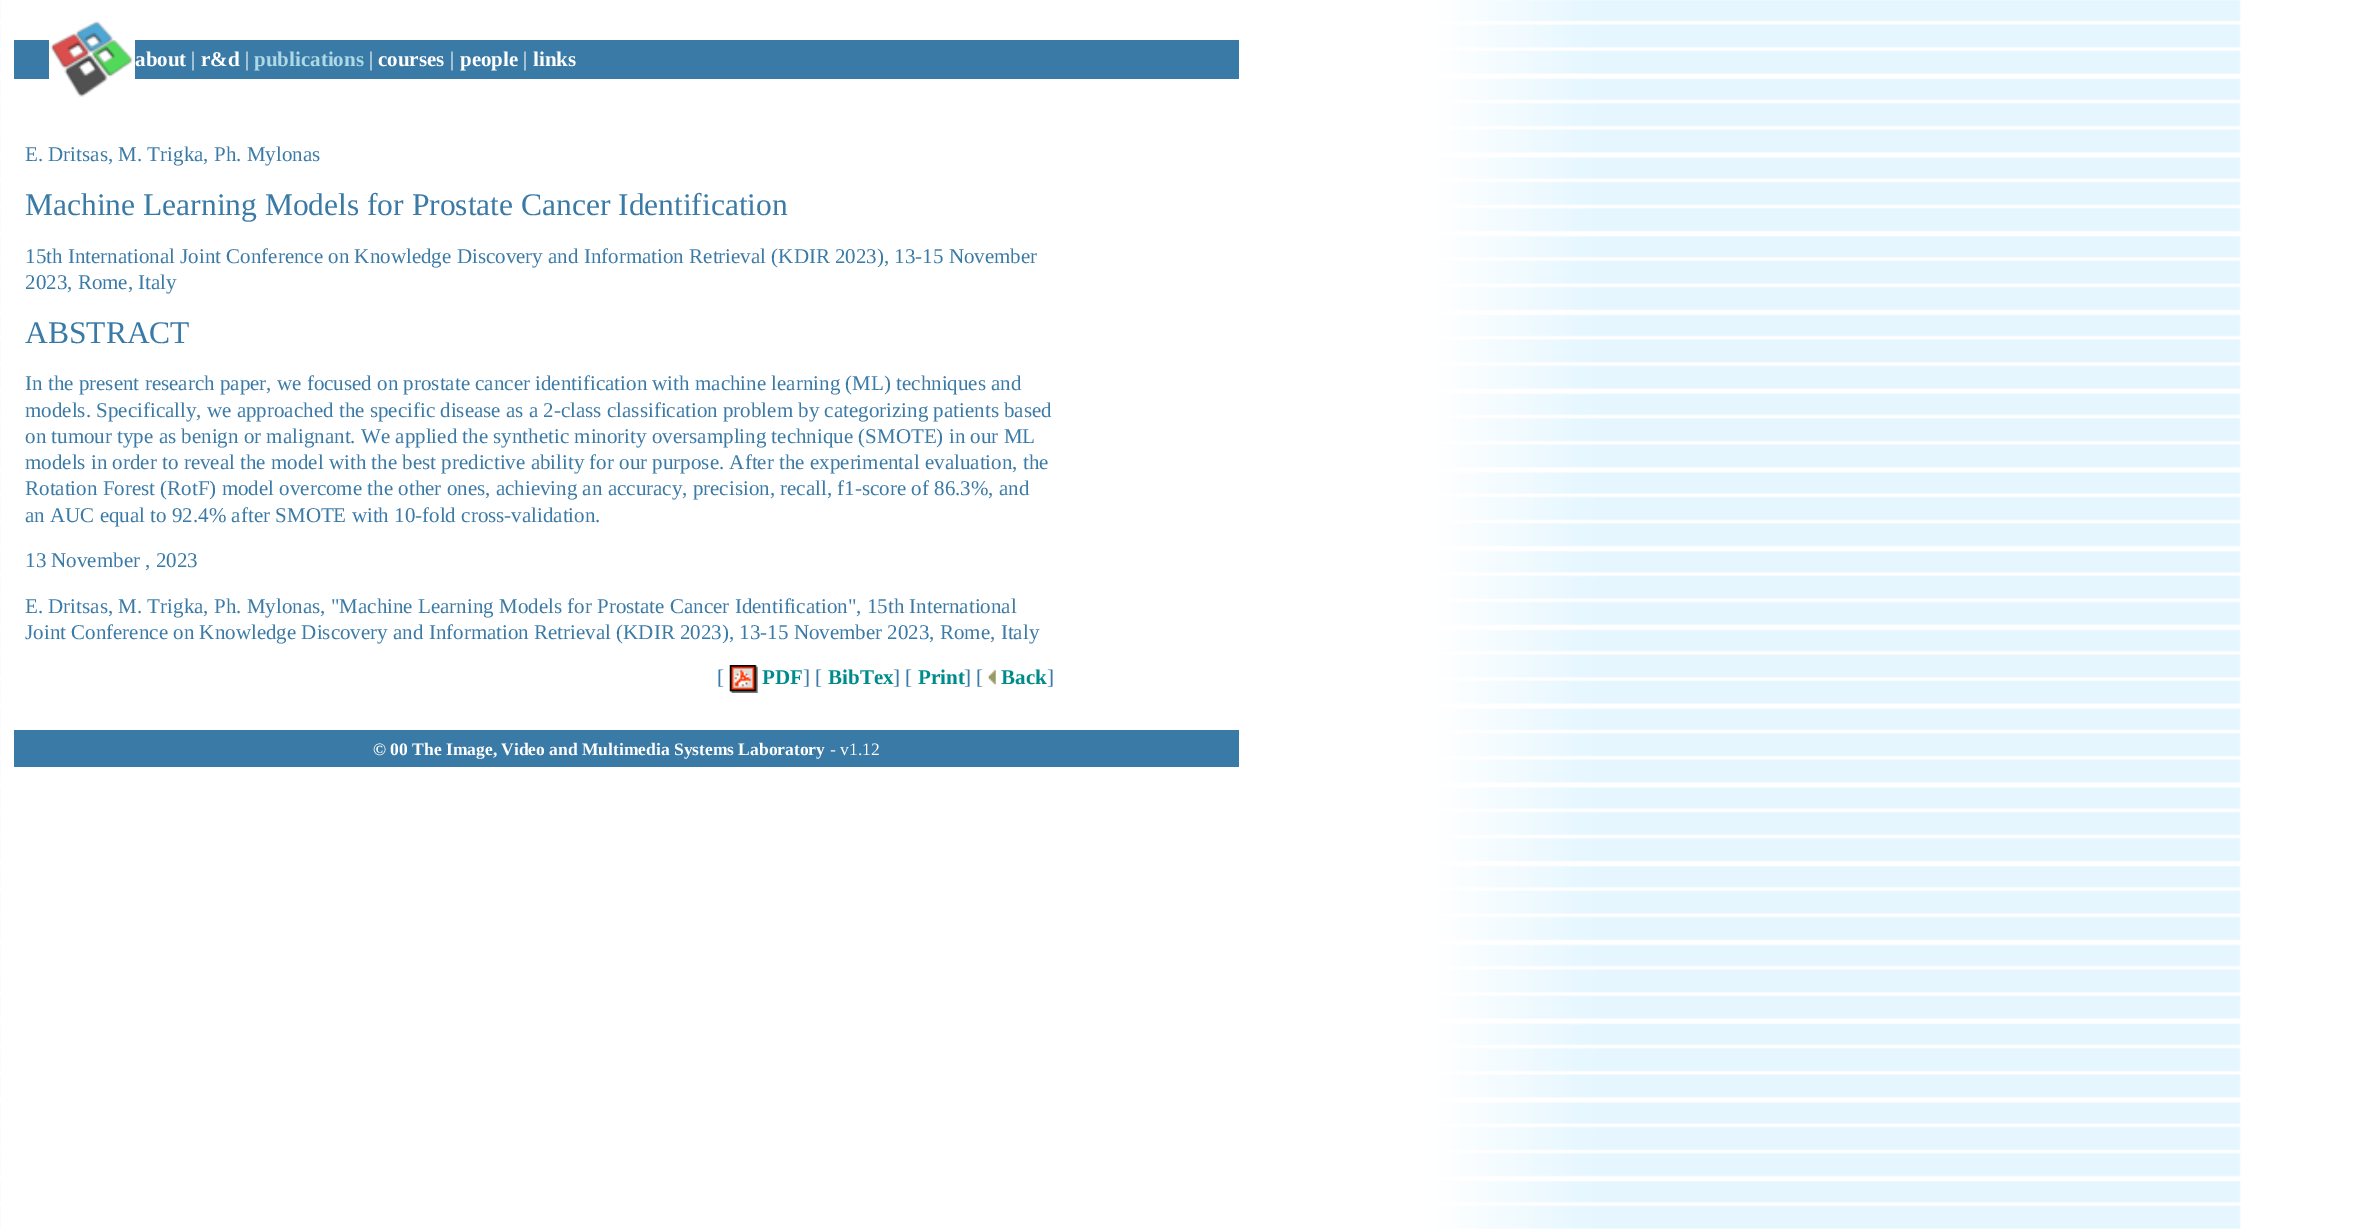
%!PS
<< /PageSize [2354 1231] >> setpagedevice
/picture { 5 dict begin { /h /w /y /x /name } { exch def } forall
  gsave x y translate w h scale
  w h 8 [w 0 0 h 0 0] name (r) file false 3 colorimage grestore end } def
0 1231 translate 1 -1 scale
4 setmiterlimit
1 setgray
0 0 2354 1231 rectfill
(img1.rgb) 0 0 2241 1229 picture
(img2.rgb) 50 20 83 77 picture
0.227 0.478 0.651 setrgbcolor
14 40 35 39 rectfill
135 40 1104 39 rectfill
/LiberationSerif-Bold [21 0 0 -21 0 0] selectfont
1 setgray
135 66 moveto (about) show
/LiberationSerif-Regular [21 0 0 -21 0 0] selectfont
191 66 moveto (|) show
/LiberationSerif-Bold [21 0 0 -21 0 0] selectfont
201 66 moveto (r&d) show
/LiberationSerif-Regular [21 0 0 -21 0 0] selectfont
245 66 moveto (|) show
/LiberationSerif-Bold [21 0 0 -21 0 0] selectfont
0.678 0.847 0.902 setrgbcolor
254 66 moveto (publications) show
/LiberationSerif-Regular [21 0 0 -21 0 0] selectfont
1 setgray
369 66 moveto (|) show
/LiberationSerif-Bold [21 0 0 -21 0 0] selectfont
378 66 moveto (courses) show
/LiberationSerif-Regular [21 0 0 -21 0 0] selectfont
450 66 moveto (|) show
/LiberationSerif-Bold [21 0 0 -21 0 0] selectfont
460 66 moveto (people) show
/LiberationSerif-Regular [21 0 0 -21 0 0] selectfont
523 66 moveto (|) show
/LiberationSerif-Bold [21 0 0 -21 0 0] selectfont
533 66 moveto (links) show
/LiberationSerif-Regular [21 0 0 -21 0 0] selectfont
0.227 0.478 0.651 setrgbcolor
25 161 moveto (E. Dritsas, M. Trigka, Ph. Mylonas) show
/LiberationSerif-Regular [31.5 0 0 -31.5 0 0] selectfont
25 215 moveto (Machine Learning Models for Prostate Cancer Identification) show
/LiberationSerif-Regular [21 0 0 -21 0 0] selectfont
25 263 moveto (15th International Joint Conference on Knowledge Discovery and Information Retrieval \(KDIR 2023\), 13-15 November) show
25 289 moveto (2023, Rome, Italy) show
/LiberationSerif-Regular [31.5 0 0 -31.5 0 0] selectfont
25 343 moveto (ABSTRACT) show
/LiberationSerif-Regular [21 0 0 -21 0 0] selectfont
25 390 moveto (In the present research paper, we focused on prostate cancer identification with machine learning \(ML\) techniques and) show
25 417 moveto (models. Specifically, we approached the specific disease as a 2-class classification problem by categorizing patients based) show
25 443 moveto (on tumour type as benign or malignant. We applied the synthetic minority oversampling technique \(SMOTE\) in our ML) show
25 469 moveto (models in order to reveal the model with the best predictive ability for our purpose. After the experimental evaluation, the) show
25 495 moveto (Rotation Forest \(RotF\) model overcome the other ones, achieving an accuracy, precision, recall, f1-score of 86.3%, and) show
25 522 moveto (an AUC equal to 92.4% after SMOTE with 10-fold cross-validation.) show
25 567 moveto (13 November , 2023) show
25 613 moveto (E. Dritsas, M. Trigka, Ph. Mylonas, "Machine Learning Models for Prostate Cancer Identification", 15th International) show
25 639 moveto (Joint Conference on Knowledge Discovery and Information Retrieval \(KDIR 2023\), 13-15 November 2023, Rome, Italy) show
717 684 moveto ([) show
(img3.rgb) 729 665 29 28 picture
/LiberationSerif-Bold [21 0 0 -21 0 0] selectfont
0 0.545 0.545 setrgbcolor
762 684 moveto (PDF) show
/LiberationSerif-Regular [21 0 0 -21 0 0] selectfont
0.227 0.478 0.651 setrgbcolor
803 684 moveto (] [) show
/LiberationSerif-Bold [21 0 0 -21 0 0] selectfont
0 0.545 0.545 setrgbcolor
828 684 moveto (BibTex) show
/LiberationSerif-Regular [21 0 0 -21 0 0] selectfont
0.227 0.478 0.651 setrgbcolor
893 684 moveto (] [) show
/LiberationSerif-Bold [21 0 0 -21 0 0] selectfont
0 0.545 0.545 setrgbcolor
918 684 moveto (Print) show
/LiberationSerif-Regular [21 0 0 -21 0 0] selectfont
0.227 0.478 0.651 setrgbcolor
964 684 moveto (] [) show
(img4.rgb) 988 670 8 15 picture
/LiberationSerif-Bold [21 0 0 -21 0 0] selectfont
0 0.545 0.545 setrgbcolor
1001 684 moveto (Back) show
/LiberationSerif-Regular [21 0 0 -21 0 0] selectfont
0.227 0.478 0.651 setrgbcolor
1047 684 moveto (]) show
14 730 1225 37 rectfill
/LiberationSerif-Bold [17.5 0 0 -17.5 0 0] selectfont
1 setgray
373 755 moveto (© 00 The Image, Video and Multimedia Systems Laboratory) show
/LiberationSerif-Regular [17.5 0 0 -17.5 0 0] selectfont
830 755 moveto (- v1.12) show
showpage
